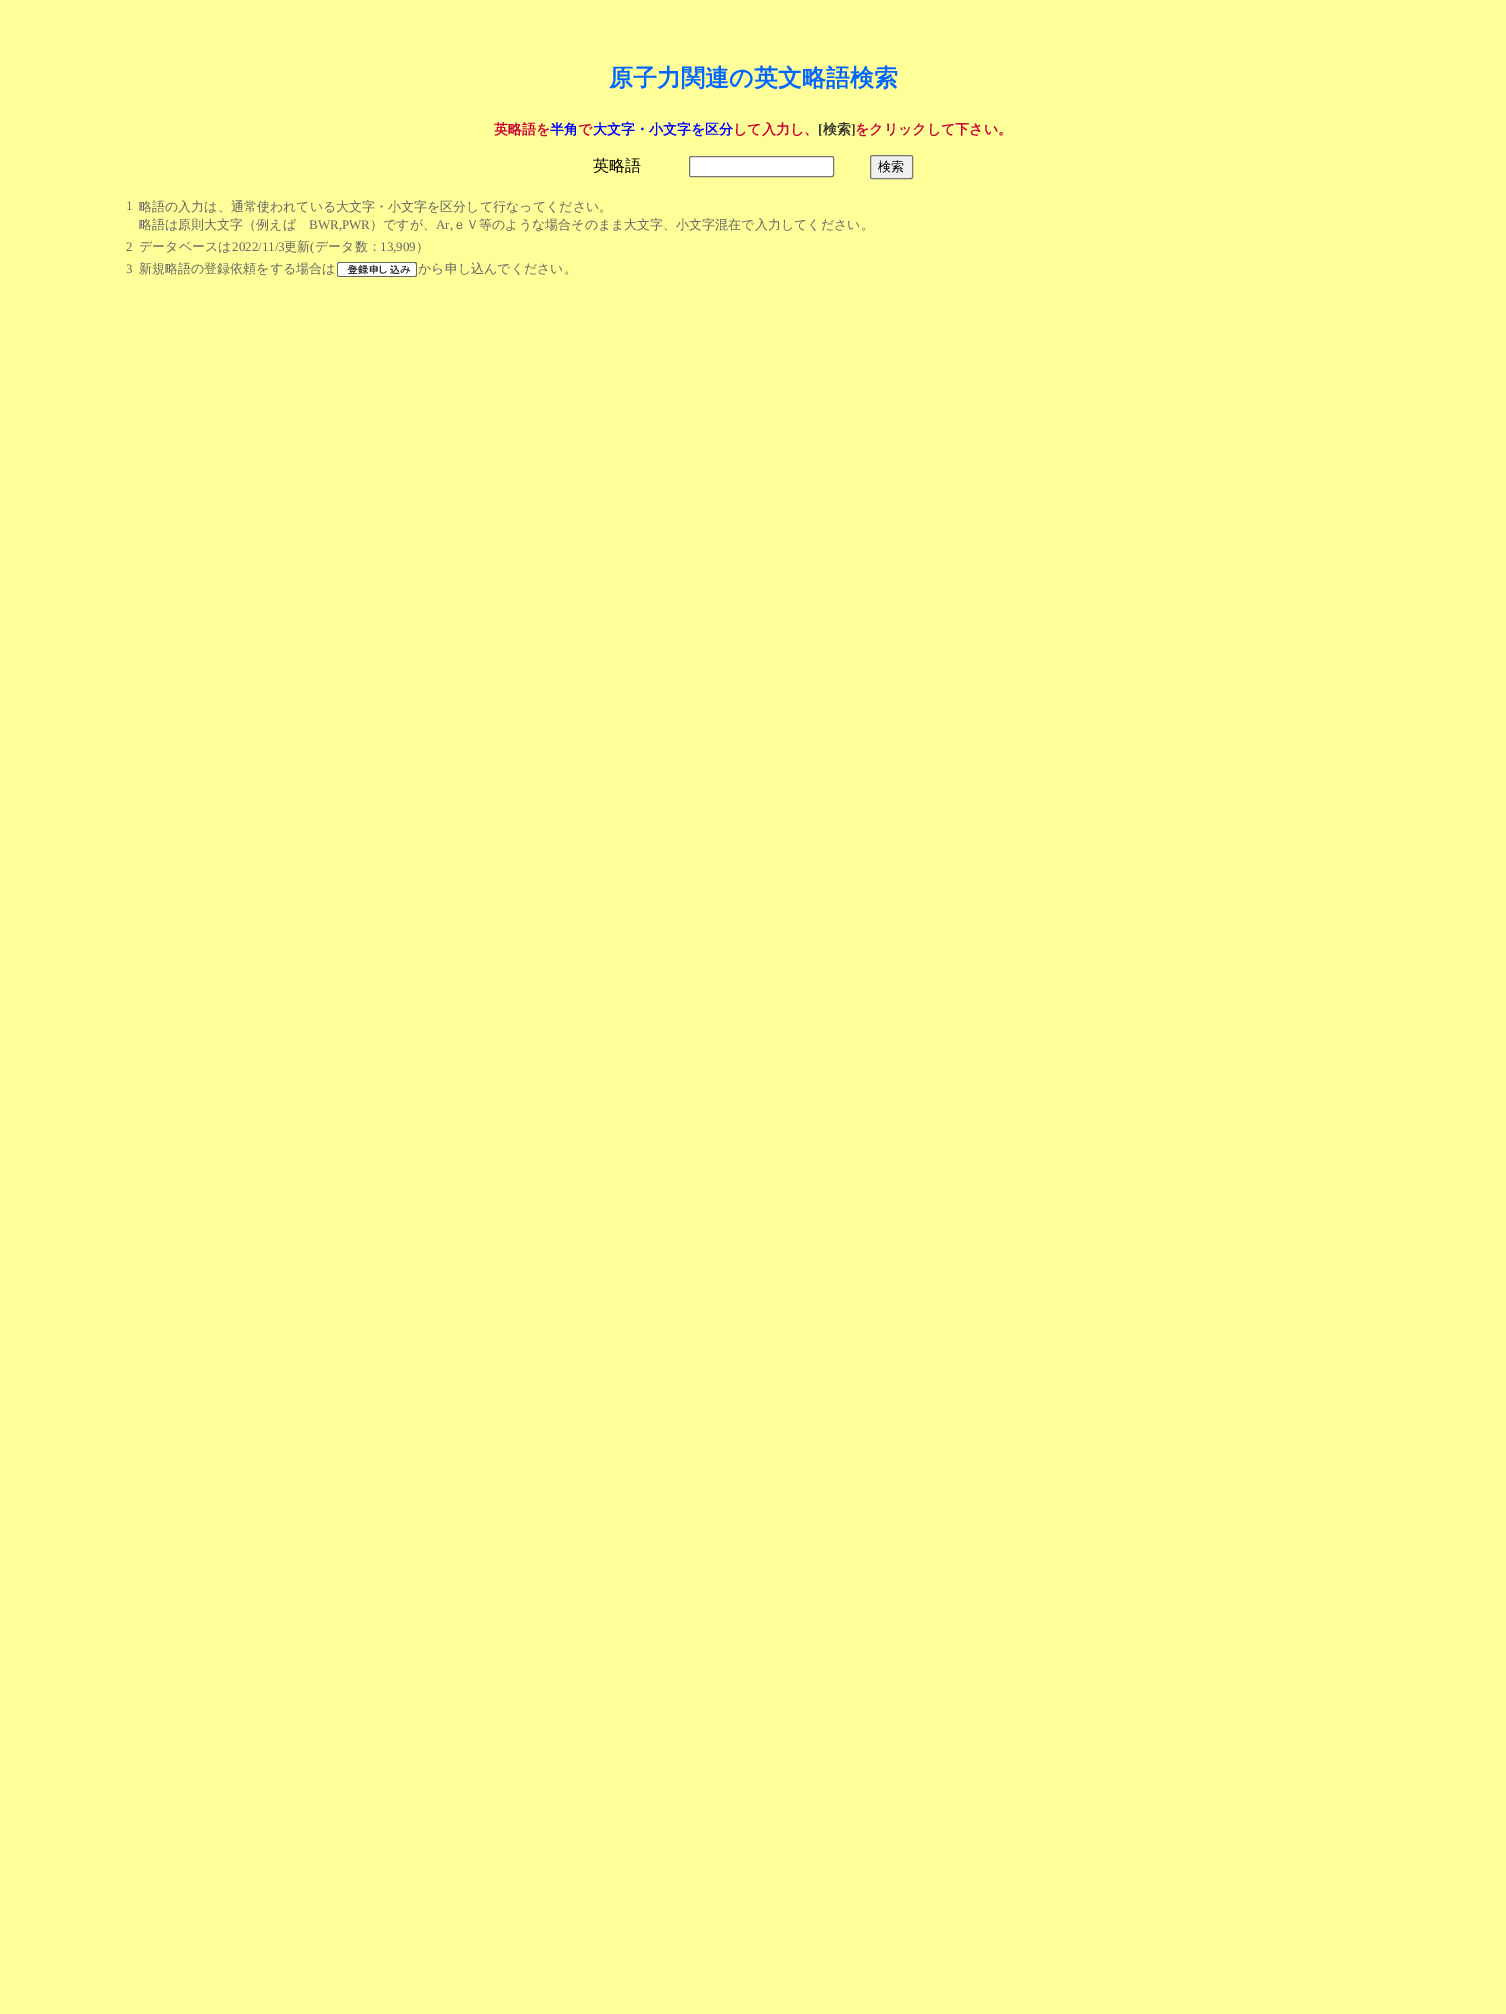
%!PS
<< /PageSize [1506 2014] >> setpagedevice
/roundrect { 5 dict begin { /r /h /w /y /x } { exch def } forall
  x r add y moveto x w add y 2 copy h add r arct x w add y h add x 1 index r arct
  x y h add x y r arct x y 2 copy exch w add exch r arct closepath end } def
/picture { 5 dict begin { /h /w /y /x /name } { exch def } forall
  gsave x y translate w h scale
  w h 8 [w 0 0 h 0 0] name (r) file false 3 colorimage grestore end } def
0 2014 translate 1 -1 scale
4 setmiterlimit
1 1 0.6 setrgbcolor
0 0 1506 2014 rectfill
/WenQuanYiZenHei-Bold [24 0 0 -24 0 0] selectfont
0 0.4 1 setrgbcolor
609 86 moveto (原子力関連の英文略語検索) show
/WenQuanYiZenHei-Bold [14 0 0 -14 0 0] selectfont
0.8 0 0.2 setrgbcolor
494 134 moveto (英略語を) show
0 0 1 setrgbcolor
550 134 moveto (半角) show
0.8 0 0.2 setrgbcolor
578 134 moveto (で) show
0 0 1 setrgbcolor
593 134 moveto (大文字・小文字を区分) show
0.8 0 0.2 setrgbcolor
733 134 moveto (して入力し、) show
/LiberationSerif-Bold [14 0 0 -14 0 0] selectfont
0.2 setgray
818 134 moveto ([) show
/WenQuanYiZenHei-Bold [14 0 0 -14 0 0] selectfont
823 134 moveto (検索) show
/LiberationSerif-Bold [14 0 0 -14 0 0] selectfont
851 134 moveto (]) show
/WenQuanYiZenHei-Bold [14 0 0 -14 0 0] selectfont
0.8 0 0.2 setrgbcolor
855 134 moveto (をクリックして下さい。) show
/WenQuanYiZenHei-Medium [16 0 0 -16 0 0] selectfont
0 setgray
593 171 moveto (英略語) show
1 setgray
689.5 156.5 144 20 1.5 roundrect gsave fill grestore
0.463 setgray
stroke
0.937 setgray
870.5 155.5 42 23 1.5 roundrect gsave fill grestore
0.463 setgray
stroke
/WenQuanYiZenHei-Medium [13 0 0 -13 0 0] selectfont
0 setgray
878 171 moveto (検索) show
/LiberationSerif-Regular [13 0 0 -13 0 0] selectfont
0.4 setgray
126 210 moveto (1) show
/WenQuanYiZenHei-Medium [13 0 0 -13 0 0] selectfont
139 211 moveto (略語の入力は、通常使われている大文字・小文字を区分して行なってください。) show
139 229 moveto (略語は原則大文字（例えば) show
/LiberationSerif-Regular [13 0 0 -13 0 0] selectfont
309 229 moveto (BWR,PWR) show
/WenQuanYiZenHei-Medium [13 0 0 -13 0 0] selectfont
370 229 moveto (）ですが、) show
/LiberationSerif-Regular [13 0 0 -13 0 0] selectfont
436 229 moveto (Ar,) show
/WenQuanYiZenHei-Medium [13 0 0 -13 0 0] selectfont
453 229 moveto (ｅＶ等のような場合そのまま大文字、小文字混在で入力してください。) show
/LiberationSerif-Regular [13 0 0 -13 0 0] selectfont
126 251 moveto (2) show
/WenQuanYiZenHei-Medium [13 0 0 -13 0 0] selectfont
139 251 moveto (データベースは) show
/LiberationSerif-Regular [13 0 0 -13 0 0] selectfont
232 251 moveto (2022/11/3) show
/WenQuanYiZenHei-Medium [13 0 0 -13 0 0] selectfont
284 251 moveto (更新) show
/LiberationSerif-Regular [13 0 0 -13 0 0] selectfont
310 251 moveto (\() show
/WenQuanYiZenHei-Medium [13 0 0 -13 0 0] selectfont
315 251 moveto (データ数：) show
/LiberationSerif-Regular [13 0 0 -13 0 0] selectfont
380 251 moveto (13,909) show
/WenQuanYiZenHei-Medium [13 0 0 -13 0 0] selectfont
416 251 moveto (）) show
/LiberationSerif-Regular [13 0 0 -13 0 0] selectfont
126 273 moveto (3) show
/WenQuanYiZenHei-Medium [13 0 0 -13 0 0] selectfont
139 273 moveto (新規略語の登録依頼をする場合は) show
(img1.rgb) 337 262 80 15 picture
418 273 moveto (から申し込んでください。) show
showpage
